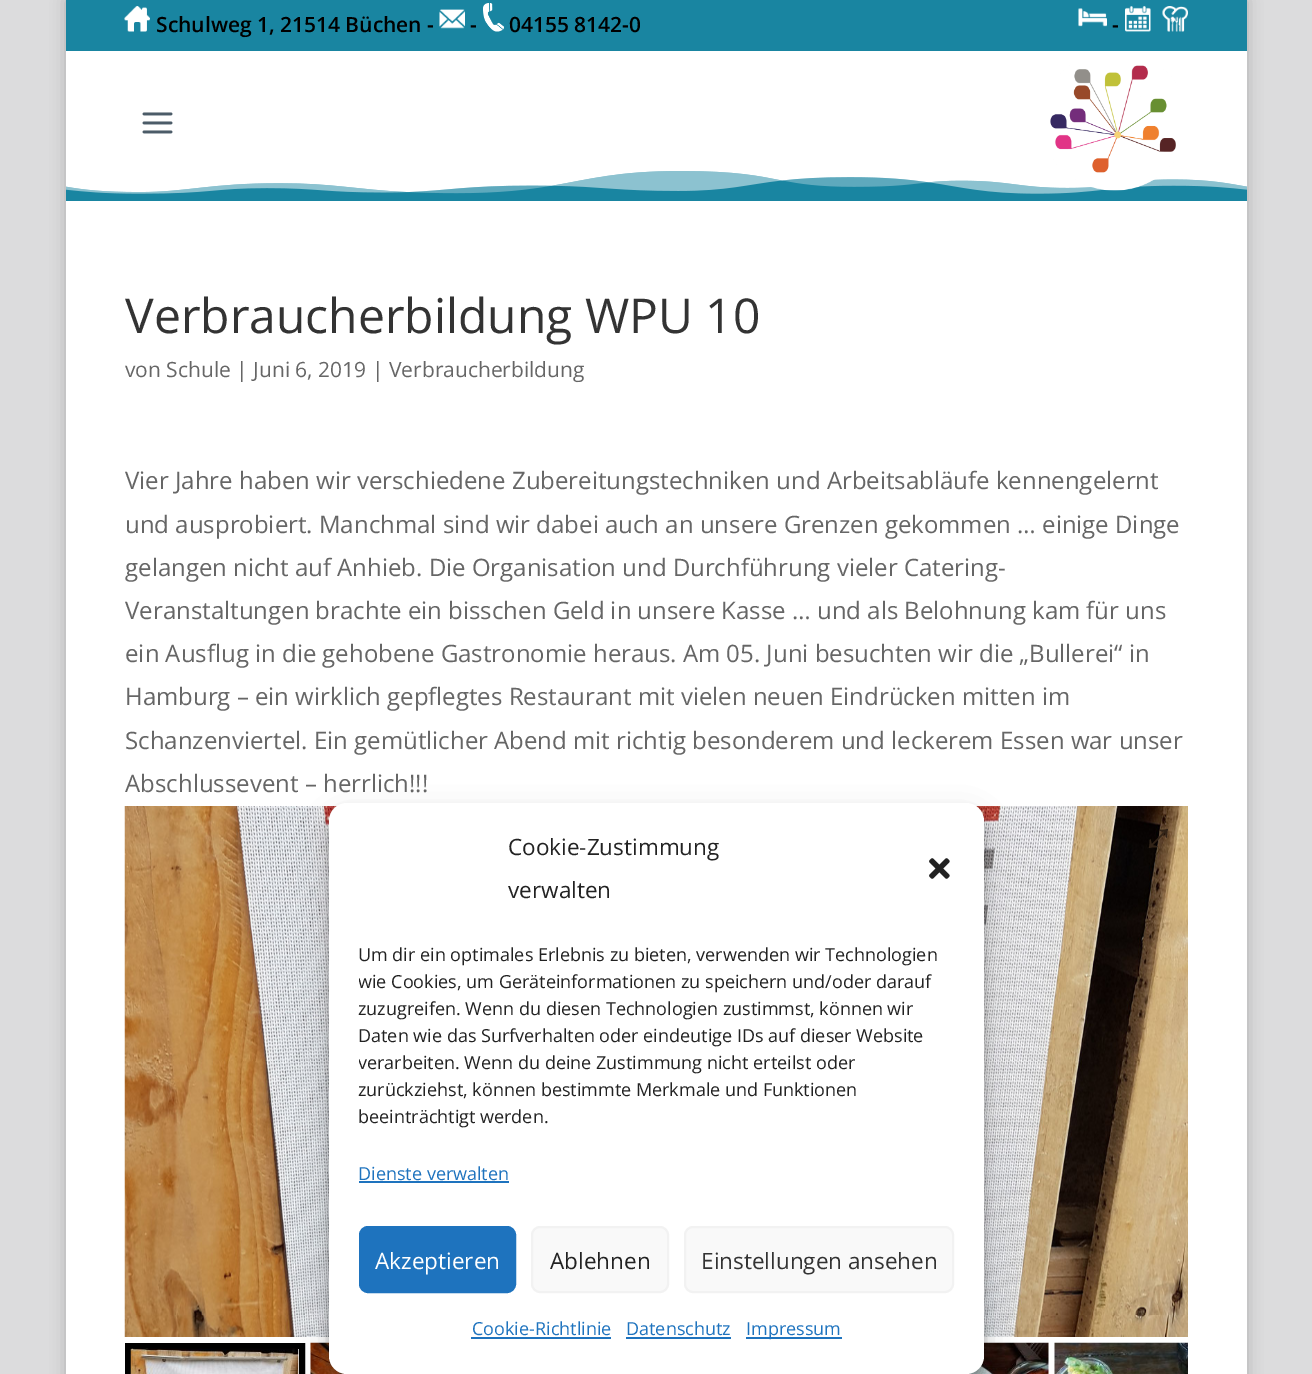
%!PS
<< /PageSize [1312 1374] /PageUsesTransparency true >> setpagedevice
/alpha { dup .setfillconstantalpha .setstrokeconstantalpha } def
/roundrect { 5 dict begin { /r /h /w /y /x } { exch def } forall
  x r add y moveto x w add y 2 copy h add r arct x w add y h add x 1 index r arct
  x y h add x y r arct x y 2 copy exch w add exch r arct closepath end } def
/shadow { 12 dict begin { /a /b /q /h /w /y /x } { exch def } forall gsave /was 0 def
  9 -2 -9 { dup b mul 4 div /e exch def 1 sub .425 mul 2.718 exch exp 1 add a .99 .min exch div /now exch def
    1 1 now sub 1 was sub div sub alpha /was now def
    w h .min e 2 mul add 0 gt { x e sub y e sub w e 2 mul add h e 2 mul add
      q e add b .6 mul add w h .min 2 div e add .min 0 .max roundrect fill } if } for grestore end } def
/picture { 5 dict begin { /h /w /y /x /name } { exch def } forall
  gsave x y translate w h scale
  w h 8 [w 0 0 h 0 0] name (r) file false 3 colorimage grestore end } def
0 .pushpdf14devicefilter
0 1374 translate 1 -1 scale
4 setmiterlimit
0.863 0.863 0.867 setrgbcolor
0 0 1312 1374 rectfill
0 setgray
66 0 1181 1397 0 7.5 0.2 shadow
0.098 0.522 0.631 setrgbcolor
66 0 1181 51 rectfill
(img1.rgb) 124 6 26 26 picture
/OpenSans-SemiBold [21 0 0 -21 0 0] selectfont
0 setgray
156 32 moveto (Schulweg 1, 21514 Büchen -) show
(img2.rgb) 439 9 26 20 picture
470 32 moveto (-) show
(img3.rgb) 483 3 21 29 picture
509 32 moveto (04155 8142-0) show
(img4.rgb) 1078 8 29 19 picture
1112 32 moveto (-) show
(img5.rgb) 1125 6 26 26 picture
(img6.rgb) 1162 6 26 26 picture
1 setgray
66 51 1181 120 rectfill
(img7.rgb) 142 112 31 22 picture
0.098 0.522 0.631 setrgbcolor
66 171 1181 30 rectfill
(img9.rgb) 66 171 1181 23 picture
(img8.rgb) 1050 65 126 126 picture
1 setgray
66 201 1181 1173 rectfill
/OpenSans-Regular [48 0 0 -48 0 0] selectfont
0.2 setgray
125 333 moveto (Verbraucherbildung WPU 10) show
/OpenSans-Regular [21 0 0 -21 0 0] selectfont
0.4 setgray
125 377 moveto (von Schule | Juni 6, 2019 | Verbraucherbildung) show
/OpenSans-Regular [24 0 0 -24 0 0] selectfont
125 489 moveto (Vier Jahre haben wir verschiedene Zubereitungstechniken und Arbeitsabläufe kennengelernt) show
125 533 moveto (und ausprobiert. Manchmal sind wir dabei auch an unsere Grenzen gekommen … einige Dinge) show
125 576 moveto (gelangen nicht auf Anhieb. Die Organisation und Durchführung vieler Catering-) show
125 619 moveto (Veranstaltungen brachte ein bisschen Geld in unsere Kasse … und als Belohnung kam für uns) show
125 662 moveto (ein Ausflug in die gehobene Gastronomie heraus. Am 05. Juni besuchten wir die „Bullerei“ in) show
125 705 moveto (Hamburg – ein wirklich gepflegtes Restaurant mit vielen neuen Eindrücken mitten im) show
125 749 moveto (Schanzenviertel. Ein gemütlicher Abend mit richtig besonderem und leckerem Essen war unser) show
125 792 moveto (Abschlussevent – herrlich!!!) show
(img10.rgb) 124 806 1064 531 picture
/LiberationSans-Regular [45 0 0 -45 0 0] selectfont
0.192 0.137 0.09 setrgbcolor
gsave 1142 839 translate 45 rotate 0 0 moveto (↕) show grestore
0 setgray
6 setlinewidth
128 1346 174 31 rectstroke
(img11.rgb) 130 1348 169 26 picture
(img12.rgb) 310 1342 37 32 picture
(img13.rgb) 966 1342 83 32 picture
(img14.rgb) 1054 1342 134 32 picture
329 812 655 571 18 4.5 0.23 shadow
329 818 655 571 18 15 0.19 shadow
1 setgray
329 803 655 571 18 roundrect fill
/OpenSans-Regular [22.5 0 0 -22.5 0 0] selectfont
0.133 setgray
508 855 moveto (Cookie-Zustimmung) show
508 898 moveto (verwalten) show
(img15.rgb) 929 858 21 21 picture
/OpenSans-Regular [18 0 0 -18 0 0] selectfont
358 961 moveto (Um dir ein optimales Erlebnis zu bieten, verwenden wir Technologien) show
gsave
359 941 595 196 rectclip
358 988 moveto (wie Cookies, um Geräteinformationen zu speichern und/oder darauf) show
grestore
358 1015 moveto (zuzugreifen. Wenn du diesen Technologien zustimmst, können wir) show
358 1042 moveto (Daten wie das Surfverhalten oder eindeutige IDs auf dieser Website) show
gsave
359 941 595 196 rectclip
358 1069 moveto (verarbeiten. Wenn du deine Zustimmung nicht erteilst oder) show
grestore
358 1096 moveto (zurückziehst, können bestimmte Merkmale und Funktionen) show
358 1123 moveto (beeinträchtigt werden.) show
0.118 0.451 0.745 setrgbcolor
358 1180 moveto (Dienste verwalten) show
359 1181 150 2 rectfill
360 1227 155 65 8 roundrect gsave fill grestore
2 setlinewidth
stroke
/OpenSans-Regular [22.5 0 0 -22.5 0 0] selectfont
1 setgray
375 1269 moveto (Akzeptieren) show
0.976 setgray
532 1227 136 65 8 roundrect gsave fill grestore
0.949 setgray
stroke
0.133 setgray
550 1269 moveto (Ablehnen) show
0.976 setgray
685 1227 268 65 8 roundrect gsave fill grestore
0.949 setgray
stroke
0.2 setgray
701 1269 moveto (Einstellungen ansehen) show
/OpenSans-Regular [18 0 0 -18 0 0] selectfont
0.118 0.451 0.745 setrgbcolor
472 1335 moveto (Cookie-Richtlinie) show
471 1337 140 2 rectfill
626 1335 moveto (Datenschutz) show
626 1337 105 2 rectfill
746 1337 96 2 rectfill
746 1335 moveto (Impressum) show
.poppdf14devicefilter showpage
